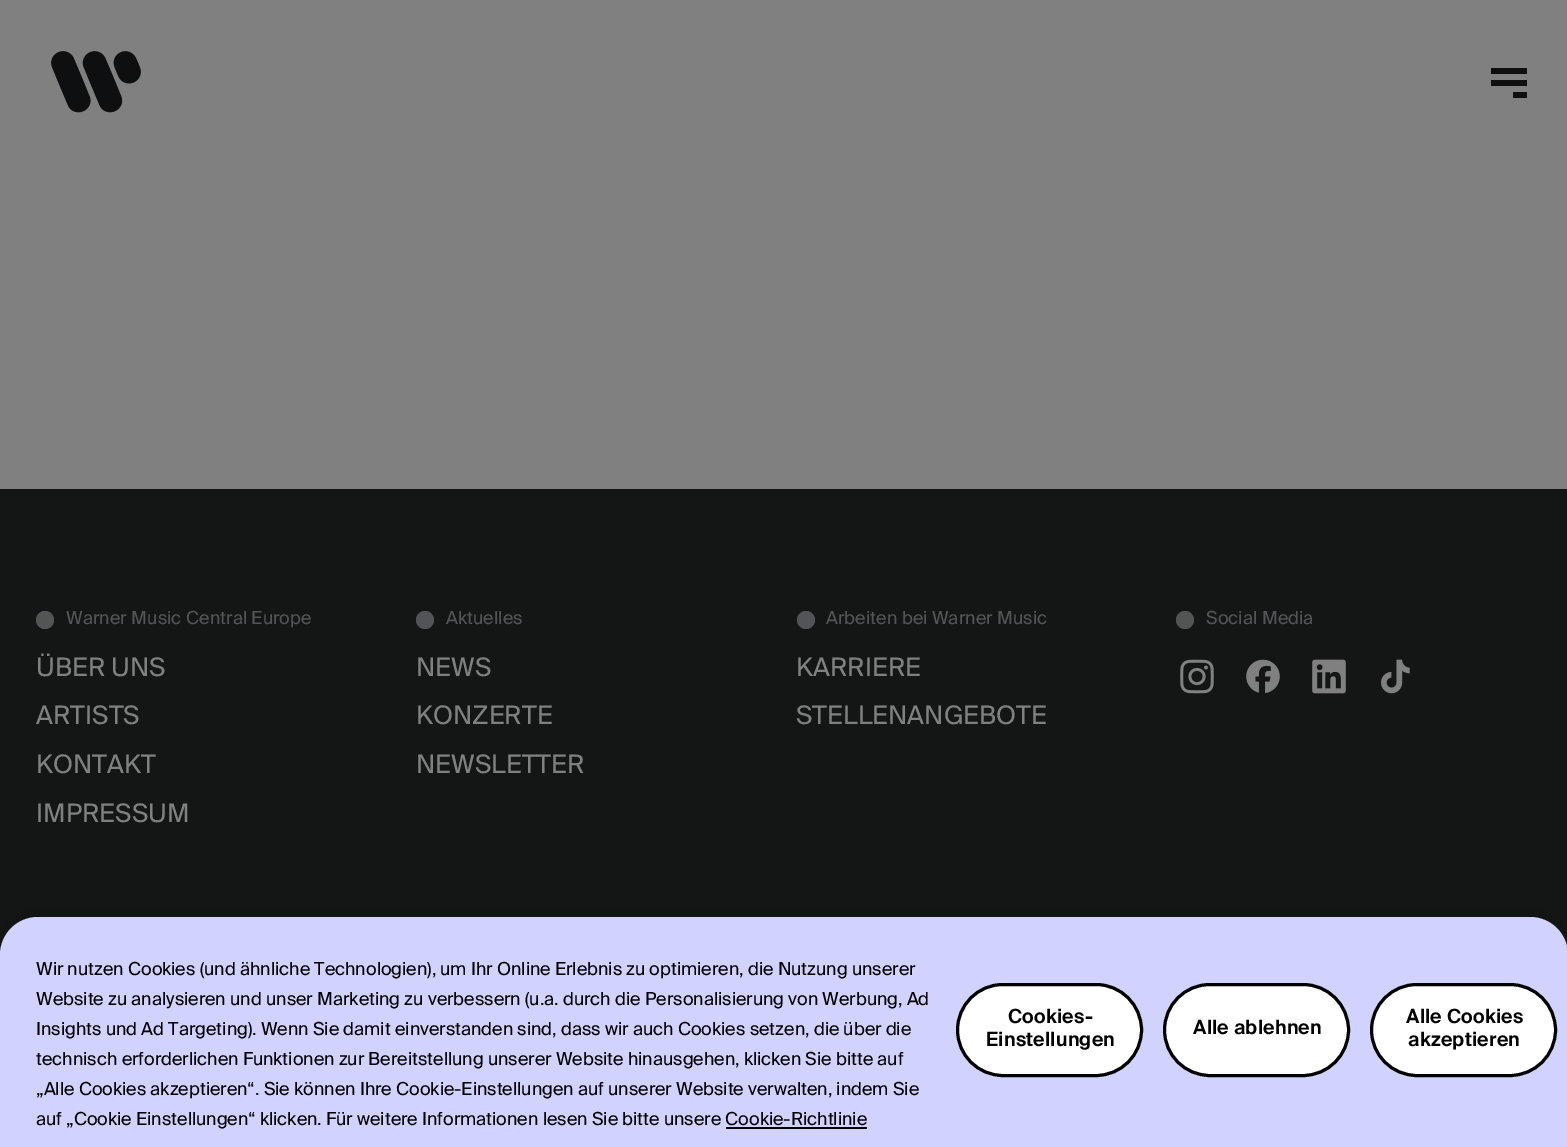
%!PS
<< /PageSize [1567 1147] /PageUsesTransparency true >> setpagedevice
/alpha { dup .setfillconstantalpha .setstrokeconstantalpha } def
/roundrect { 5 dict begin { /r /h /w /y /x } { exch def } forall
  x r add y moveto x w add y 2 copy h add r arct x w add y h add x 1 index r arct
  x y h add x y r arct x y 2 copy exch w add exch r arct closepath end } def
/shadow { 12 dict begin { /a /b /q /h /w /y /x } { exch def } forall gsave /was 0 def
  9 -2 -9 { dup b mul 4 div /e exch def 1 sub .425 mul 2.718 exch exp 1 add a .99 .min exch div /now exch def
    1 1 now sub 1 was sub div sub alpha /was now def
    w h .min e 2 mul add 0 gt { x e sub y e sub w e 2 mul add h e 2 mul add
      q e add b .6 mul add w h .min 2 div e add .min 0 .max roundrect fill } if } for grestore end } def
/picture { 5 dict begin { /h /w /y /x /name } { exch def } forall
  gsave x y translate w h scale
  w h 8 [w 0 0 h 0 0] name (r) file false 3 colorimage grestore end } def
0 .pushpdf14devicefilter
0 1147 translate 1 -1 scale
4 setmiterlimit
0.502 setgray
0 0 1567 1147 rectfill
(img1.rgb) 51 51 90 62 picture
0.059 0.059 0.063 setrgbcolor
1491 68 36 6 rectfill
1491 80 36 6 rectfill
1513 92 14 6 rectfill
0.078 0.086 0.086 setrgbcolor
0 489 1567 466 rectfill
0.325 0.329 0.337 setrgbcolor
newpath 45 620 9 0 360 arc closepath fill
/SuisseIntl-Regular [18 0 0 -18 0 0] selectfont
66 624 moveto 0.1 0 (Warner Music Central Europe) ashow
/SuisseIntl-Regular [25.5 0 0 -25.5 0 0] selectfont
0.502 setgray
36 676 moveto 0.1 0 (ÜBER UNS) ashow
36 724 moveto 0.1 0 (ARTISTS) ashow
36 773 moveto 0.1 0 (KONTAKT) ashow
36 822 moveto 0.1 0 (IMPRESSUM) ashow
0.325 0.329 0.337 setrgbcolor
newpath 425 620 9 0 360 arc closepath fill
/SuisseIntl-Regular [18 0 0 -18 0 0] selectfont
446 624 moveto 0.1 0 (Aktuelles) ashow
/SuisseIntl-Regular [25.5 0 0 -25.5 0 0] selectfont
0.502 setgray
416 676 moveto 0.1 0 (NEWS) ashow
416 724 moveto 0.1 0 (KONZERTE) ashow
416 773 moveto 0.1 0 (NEWSLETTER) ashow
0.325 0.329 0.337 setrgbcolor
newpath 806 620 9 0 360 arc closepath fill
/SuisseIntl-Regular [18 0 0 -18 0 0] selectfont
826 624 moveto 0.1 0 (Arbeiten bei Warner Music) ashow
/SuisseIntl-Regular [25.5 0 0 -25.5 0 0] selectfont
0.502 setgray
796 676 moveto 0.1 0 (KARRIERE) ashow
796 724 moveto 0.1 0 (STELLENANGEBOTE) ashow
0.325 0.329 0.337 setrgbcolor
newpath 1185 620 9 0 360 arc closepath fill
/SuisseIntl-Regular [18 0 0 -18 0 0] selectfont
1206 624 moveto 0.1 0 (Social Media) ashow
(img2.rgb) 1180 659 34 35 picture
(img3.rgb) 1246 659 34 35 picture
(img4.rgb) 1312 659 34 35 picture
(img5.rgb) 1381 659 29 35 picture
0 setgray
0 917 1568 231 38 13.5 0.2 shadow
0.824 0.824 1 setrgbcolor
newpath 38 917 moveto 1530 917 lineto 1551 917 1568 934 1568 955 curveto 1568 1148 lineto 0 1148 lineto 0 955 lineto 0 934 17 917 38 917 curveto closepath fill
0 setgray
36 975 moveto (Wir nutzen Cookies \(und ähnliche Technologien\), um Ihr Online Erlebnis zu optimieren, die Nutzung unserer) show
36 1005 moveto (Website zu analysieren und unser Marketing zu verbessern \(u.a. durch die Personalisierung von Werbung, Ad) show
36 1035 moveto (Insights und Ad Targeting\). Wenn Sie damit einverstanden sind, dass wir auch Cookies setzen, die über die) show
36 1065 moveto (technisch erforderlichen Funktionen zur Bereitstellung unserer Website hinausgehen, klicken Sie bitte auf) show
36 1095 moveto („Alle Cookies akzeptieren“. Sie können Ihre Cookie-Einstellungen auf unserer Website verwalten, indem Sie) show
36 1125 moveto (auf „Cookie Einstellungen“ klicken. Für weitere Informationen lesen Sie bitte unsere Cookie-Richtlinie) show
726 1127 141 2 rectfill
1 setgray
957.5 984.5 184 91 45.5 roundrect gsave fill grestore
0 setgray
3 setlinewidth
stroke
/SuisseIntl-SemiBold [19.5 0 0 -19.5 0 0] selectfont
1008 1023 moveto 0.25 0 (Cookies-) ashow
986 1046 moveto 0.25 0 (Einstellungen) ashow
1 setgray
1164.5 984.5 184 91 45.5 roundrect gsave fill grestore
0 setgray
stroke
1193 1034 moveto 0.25 0 (Alle ablehnen) ashow
1 setgray
1371.5 984.5 184 91 45.5 roundrect gsave fill grestore
0 setgray
stroke
1406 1023 moveto 0.25 0 (Alle Cookies) ashow
1408 1046 moveto 0.25 0 (akzeptieren) ashow
.poppdf14devicefilter showpage
